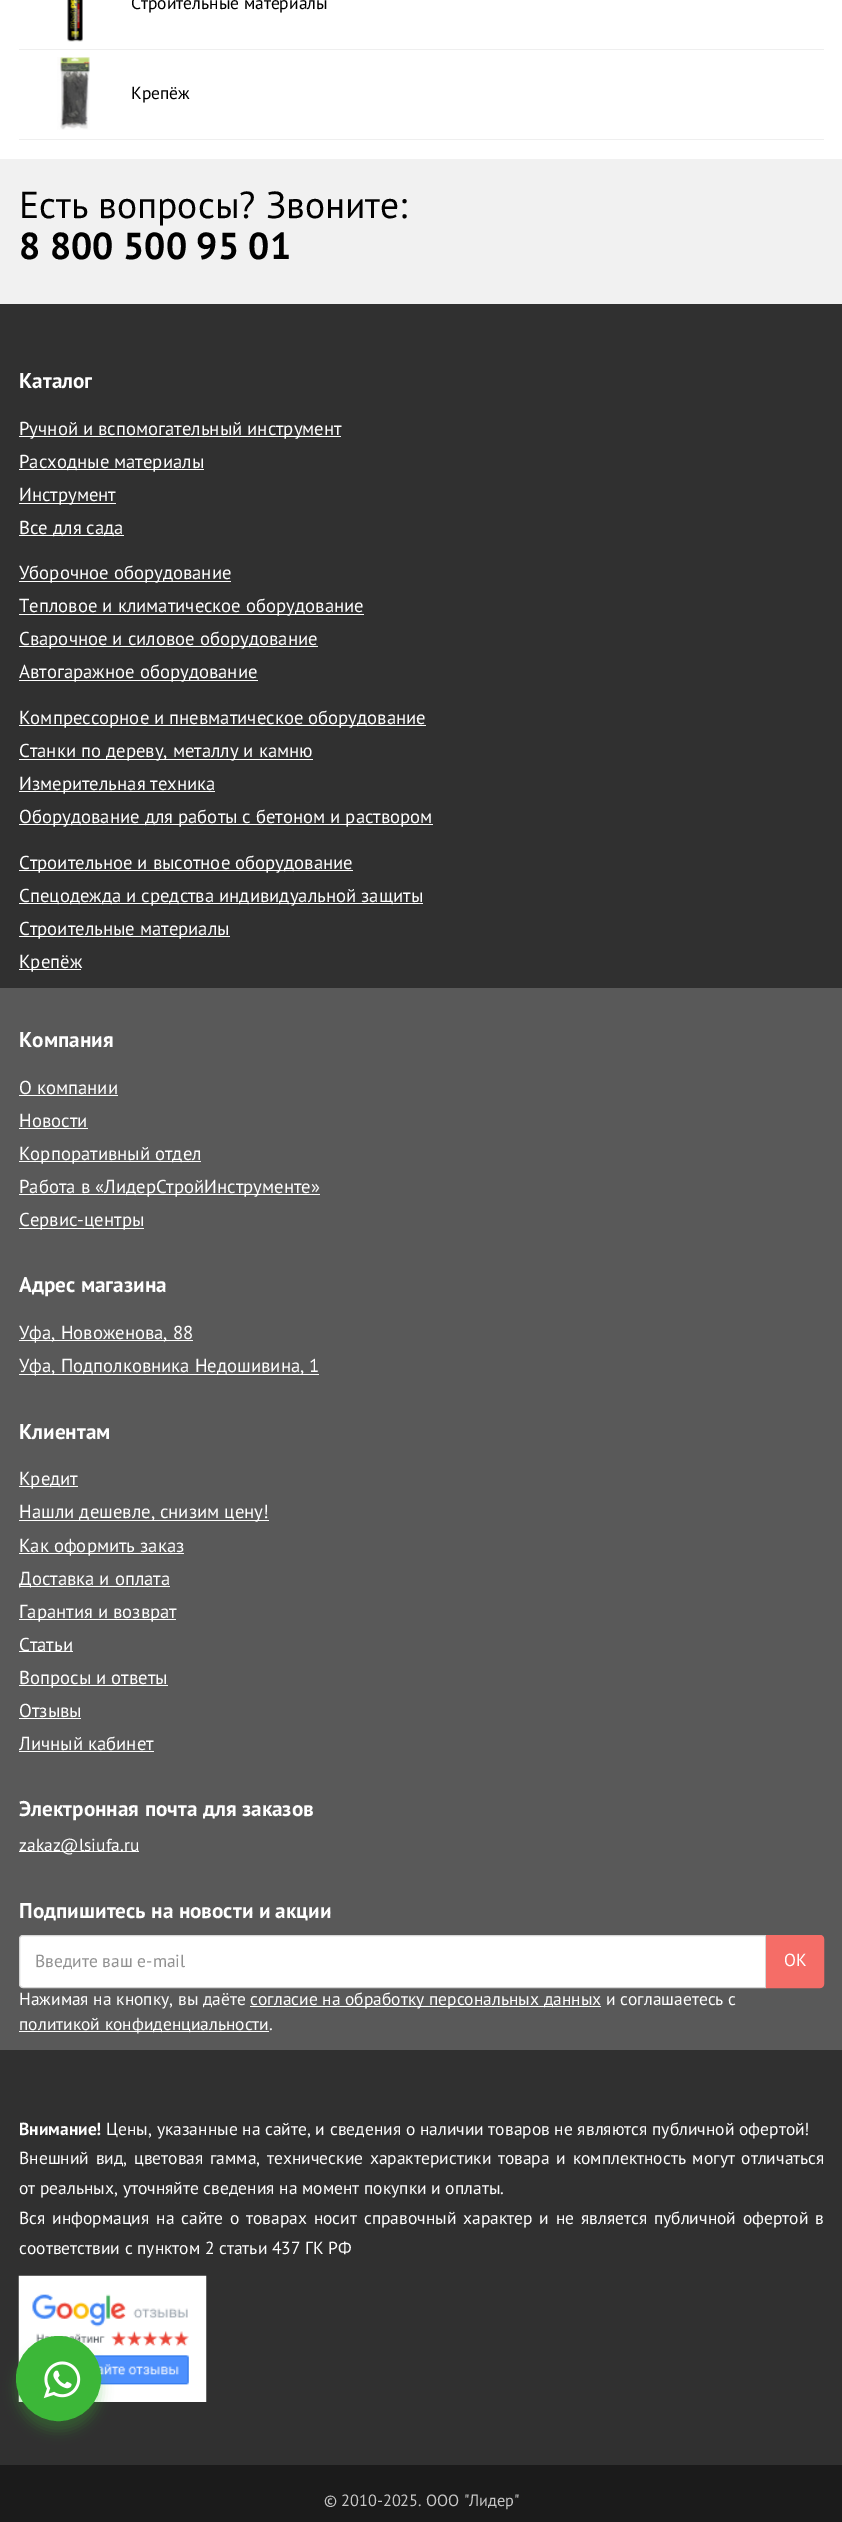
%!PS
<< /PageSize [842 2522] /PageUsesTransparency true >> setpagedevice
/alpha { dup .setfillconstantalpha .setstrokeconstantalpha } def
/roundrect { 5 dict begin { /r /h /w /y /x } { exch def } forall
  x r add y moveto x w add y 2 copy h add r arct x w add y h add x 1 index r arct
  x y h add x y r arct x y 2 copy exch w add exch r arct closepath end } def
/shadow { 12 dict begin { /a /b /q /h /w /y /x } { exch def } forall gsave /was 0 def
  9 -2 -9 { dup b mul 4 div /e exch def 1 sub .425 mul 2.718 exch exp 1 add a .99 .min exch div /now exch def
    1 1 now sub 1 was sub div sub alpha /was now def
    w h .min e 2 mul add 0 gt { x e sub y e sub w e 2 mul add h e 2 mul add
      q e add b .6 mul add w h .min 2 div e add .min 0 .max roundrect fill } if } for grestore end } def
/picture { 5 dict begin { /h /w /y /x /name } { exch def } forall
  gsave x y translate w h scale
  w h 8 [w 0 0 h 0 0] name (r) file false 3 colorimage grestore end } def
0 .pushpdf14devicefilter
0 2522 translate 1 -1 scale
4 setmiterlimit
0.945 setgray
0 0 842 2522 rectfill
1 setgray
0 0 842 159 rectfill
0.937 setgray
19 49 805 1 rectfill
(img1.rgb) 67 0 16 42 picture
/PTSans-Regular [17.5 0 0 -17.5 0 0] selectfont
0 setgray
131 9 moveto (Строительные материалы) show
0.937 setgray
19 139 805 1 rectfill
(img2.rgb) 57 57 33 73 picture
0 setgray
131 99 moveto (Крепёж) show
/PTSans-Regular [37.5 0 0 -37.5 0 0] selectfont
19 218 moveto (Есть вопросы? Звоните:) show
/PTSans-Bold [37.5 0 0 -37.5 0 0] selectfont
19 259 moveto (8 800 500 95 01) show
0.188 setgray
0 304 842 2161 rectfill
0.349 setgray
0 988 842 1062 rectfill
/PTSans-Bold [21.25 0 0 -21.25 0 0] selectfont
1 setgray
19 388 moveto (Каталог) show
19 436 322 1 rectfill
/PTSans-Regular [18.75 0 0 -18.75 0 0] selectfont
19 435 moveto (Ручной и вспомогательный инструмент) show
19 469 185 1 rectfill
19 468 moveto (Расходные материалы) show
19 503 97 1 rectfill
19 501 moveto (Инструмент) show
19 535 105 1 rectfill
19 534 moveto (Все для сада) show
19 581 212 1 rectfill
19 579 moveto (Уборочное оборудование) show
19 614 345 1 rectfill
19 612 moveto (Тепловое и климатическое оборудование) show
19 646 299 1 rectfill
19 645 moveto (Сварочное и силовое оборудование) show
19 680 239 1 rectfill
19 678 moveto (Автогаражное оборудование) show
19 725 407 1 rectfill
19 724 moveto (Компрессорное и пневматическое оборудование) show
19 759 294 1 rectfill
19 757 moveto (Станки по дереву, металлу и камню) show
19 791 196 1 rectfill
19 790 moveto (Измерительная техника) show
19 824 414 1 rectfill
19 823 moveto (Оборудование для работы с бетоном и раствором) show
19 870 334 1 rectfill
19 869 moveto (Строительное и высотное оборудование) show
19 903 404 1 rectfill
19 902 moveto (Спецодежда и средства индивидуальной защиты) show
19 936 211 1 rectfill
19 935 moveto (Строительные материалы) show
19 969 62 1 rectfill
19 968 moveto (Крепёж) show
/PTSans-Bold [21.25 0 0 -21.25 0 0] selectfont
19 1047 moveto (Компания) show
/PTSans-Regular [18.75 0 0 -18.75 0 0] selectfont
19 1094 moveto (О компании) show
19 1095 99 1 rectfill
19 1127 moveto (Новости) show
19 1128 69 1 rectfill
19 1161 182 1 rectfill
19 1160 moveto (Корпоративный отдел) show
19 1194 301 1 rectfill
19 1193 moveto (Работа в «ЛидерСтройИнструменте») show
19 1228 125 1 rectfill
19 1226 moveto (Сервис-центры) show
/PTSans-Bold [21.25 0 0 -21.25 0 0] selectfont
19 1292 moveto (Адрес магазина) show
19 1340 174 1 rectfill
/PTSans-Regular [18.75 0 0 -18.75 0 0] selectfont
19 1339 moveto (Уфа, Новоженова, 88) show
19 1374 300 1 rectfill
19 1372 moveto (Уфа, Подполковника Недошивина, 1) show
/PTSans-Bold [21.25 0 0 -21.25 0 0] selectfont
19 1439 moveto (Клиентам) show
19 1486 59 1 rectfill
/PTSans-Regular [18.75 0 0 -18.75 0 0] selectfont
19 1485 moveto (Кредит) show
19 1520 250 1 rectfill
19 1518 moveto (Нашли дешевле, снизим цену!) show
19 1553 165 1 rectfill
19 1552 moveto (Как оформить заказ) show
19 1586 151 1 rectfill
19 1585 moveto (Доставка и оплата) show
19 1619 157 1 rectfill
19 1618 moveto (Гарантия и возврат) show
19 1651 54 1 rectfill
19 1651 moveto (Статьи) show
19 1685 149 1 rectfill
19 1684 moveto (Вопросы и ответы) show
19 1717 moveto (Отзывы) show
19 1718 62 1 rectfill
19 1750 moveto (Личный кабинет) show
19 1751 135 1 rectfill
/PTSans-Bold [21.25 0 0 -21.25 0 0] selectfont
19 1816 moveto (Электронная почта для заказов) show
19 1851 120 1 rectfill
/PTSans-Regular [17.5 0 0 -17.5 0 0] selectfont
19 1851 moveto (zakaz@lsiufa.ru) show
/PTSans-Bold [21.25 0 0 -21.25 0 0] selectfont
19 1918 moveto (Подпишитесь на новости и акции) show
newpath 23 1935.5 moveto 765.5 1935.5 lineto 765.5 1987.5 lineto 23 1987.5 lineto 21 1987.5 19.5 1986 19.5 1984 curveto 19.5 1939 lineto 19.5 1937 21 1935.5 23 1935.5 curveto closepath gsave fill grestore
0.839 setgray
stroke
/PTSans-Regular [17.5 0 0 -17.5 0 0] selectfont
0.569 setgray
35 1967 moveto (Введите ваш e-mail) show
0.961 0.427 0.404 setrgbcolor
newpath 766.5 1935.5 moveto 820 1935.5 lineto 822 1935.5 823.5 1937 823.5 1939 curveto 823.5 1984 lineto 823.5 1986 822 1987.5 820 1987.5 curveto 766.5 1987.5 lineto closepath gsave fill grestore
stroke
1 setgray
784 1966 moveto (ОК) show
19 2005 moveto (Нажимая на кнопку, вы даёте) show
250 2006 351 1 rectfill
250 2005 moveto (согласие на обработку персональных данных и соглашаетесь с) show
19 2031 250 1 rectfill
19 2030 moveto (политикой конфиденциальности.) show
/PTSans-Bold [17.5 0 0 -17.5 0 0] selectfont
19 2135 moveto (Внимание!) show
/PTSans-Regular [17.5 0 0 -17.5 0 0] selectfont
106 2135 moveto (Цены, указанные на сайте, и сведения о наличии товаров не являются публичной офертой!) show
19 2164 moveto 2 0 32 (Внешний вид, цветовая гамма, технические характеристики товара и комплектность могут отличаться) widthshow
19 2194 moveto (от реальных, уточняйте сведения на момент покупки и оплаты.) show
19 2224 moveto 2.1 0 32 (Вся информация на сайте о товарах носит справочный характер и не является публичной офертой в) widthshow
19 2254 moveto (соответствии с пунктом 2 статьи 437 ГК РФ) show
(img3.rgb) 18 2275 189 127 picture
0.106 setgray
0 2465 842 57 rectfill
/PTSans-Regular [16.25 0 0 -16.25 0 0] selectfont
0.776 setgray
324 2506 moveto (© 2010-2025. ООО "Лидер") show
0.235 0.718 0.22 setrgbcolor
16 2346 85 85 42.5 6 0.3 shadow
newpath 58.5 2378.5 41 0 360 arc closepath gsave fill grestore
3 setlinewidth
stroke
(img4.rgb) 43 2361 38 38 picture
.poppdf14devicefilter showpage
